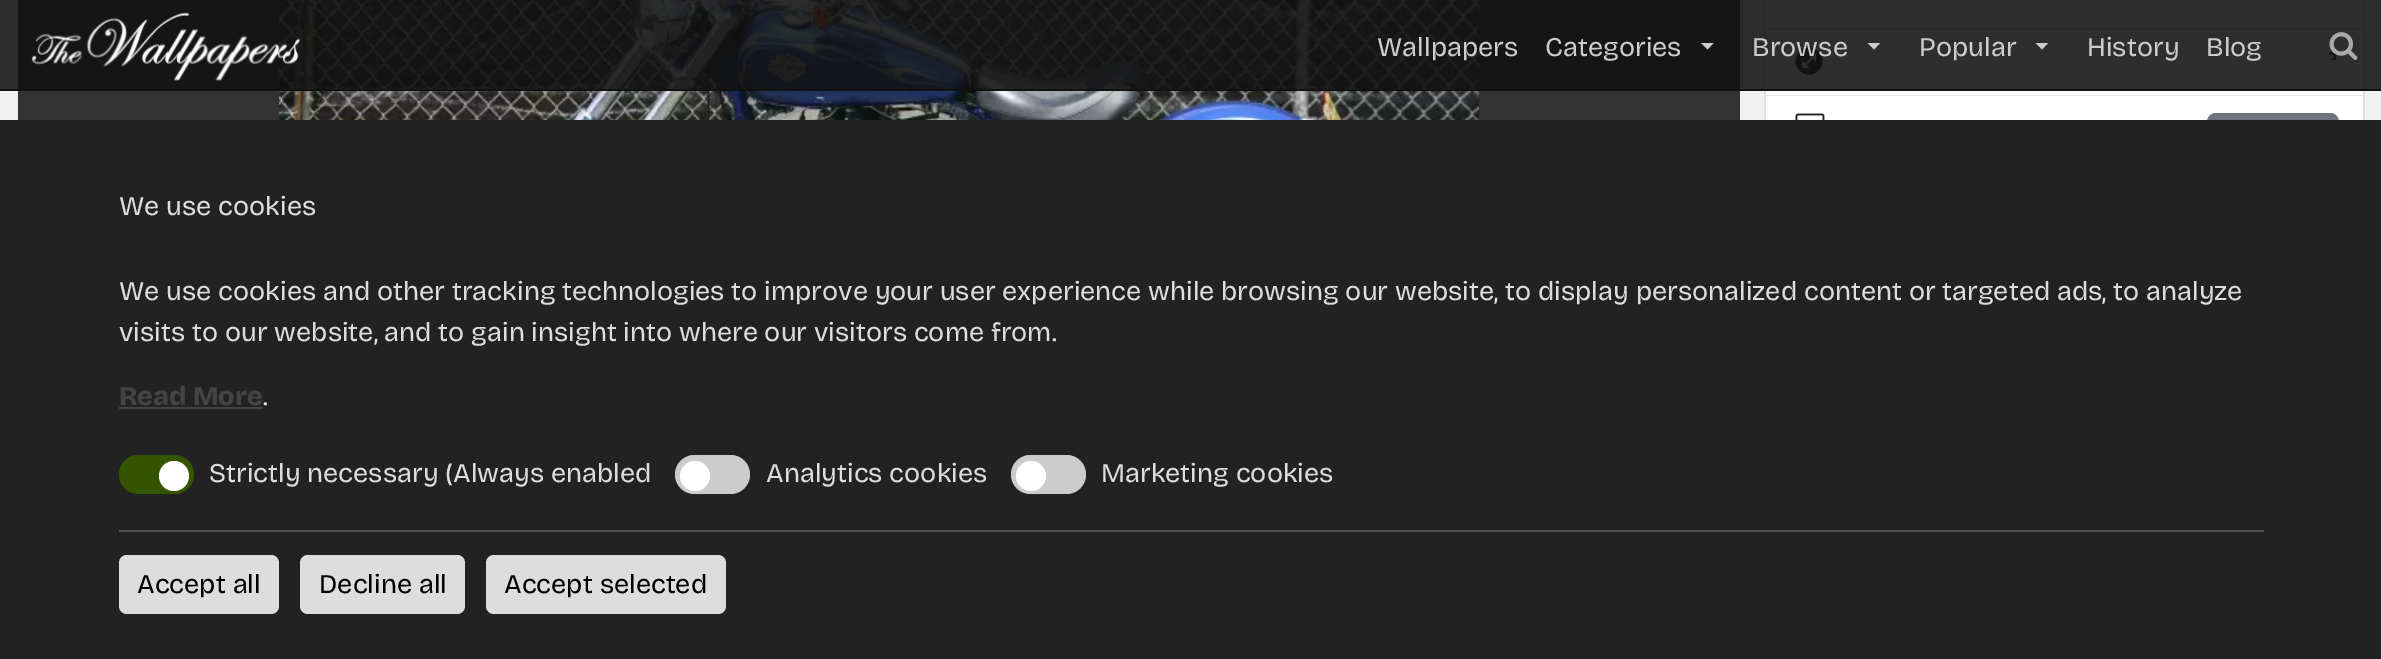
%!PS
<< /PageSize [2381 659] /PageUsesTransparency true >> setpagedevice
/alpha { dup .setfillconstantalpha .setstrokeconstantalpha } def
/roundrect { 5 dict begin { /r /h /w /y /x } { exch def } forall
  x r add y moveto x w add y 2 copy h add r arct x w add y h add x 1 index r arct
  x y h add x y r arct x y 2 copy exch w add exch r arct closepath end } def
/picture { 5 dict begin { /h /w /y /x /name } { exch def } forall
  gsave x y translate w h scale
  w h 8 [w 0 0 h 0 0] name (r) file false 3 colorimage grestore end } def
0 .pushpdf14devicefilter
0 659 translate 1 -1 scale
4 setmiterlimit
0.945 setgray
0 0 2381 659 rectfill
0.2 setgray
18 0 1722 120 rectfill
(img1.rgb) 279 0 1200 120 picture
1 setgray
newpath 1765 -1 moveto 2363 -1 lineto 2363 29 lineto 1765 29 lineto closepath gsave fill grestore
0.871 0.886 0.902 setrgbcolor
2 setlinewidth
stroke
1 setgray
1766 30 597 65 rectfill
0.871 0.886 0.902 setrgbcolor
2363 30 2 90 rectfill
1764 95 600 1 rectfill
1764 30 2 90 rectfill
(img2.rgb) 1795 47 28 28 picture
1 setgray
1766 96 597 24 rectfill
(img3.rgb) 1795 113 30 7 picture
0.424 0.459 0.49 setrgbcolor
2207 113 132 34 9 roundrect fill
0.88 alpha
0.067 setgray
0 0 2381 89 rectfill
1 alpha
0 89 2381 2 rectfill
(img4.rgb) 31 12 269 69 picture
/BricolageGrotesque-Regular [27 0 0 -27 0 0] selectfont
0.8 setgray
1377 56 moveto (Wallpapers) show
1545 56 moveto (Categories) show
newpath 1707.5 49.5 moveto 1701 43 lineto 1713.5 43 lineto closepath fill
1752 56 moveto (Browse) show
newpath 1874 49.5 moveto 1867.5 43 lineto 1880 43 lineto closepath fill
1919 56 moveto (Popular) show
newpath 2042 49.5 moveto 2035.5 43 lineto 2048 43 lineto closepath fill
2087 56 moveto (History) show
2206 56 moveto (Blog) show
(img5.rgb) 2329 32 29 28 picture
0.133 setgray
0 120 2381 539 rectfill
0.867 setgray
119 215 moveto (We use cookies) show
119 300 moveto (We use cookies and other tracking technologies to improve your user experience while browsing our website, to display personalized content or targeted ads, to analyze) show
119 341 moveto (visits to our website, and to gain insight into where our visitors come from.) show
/BricolageGrotesque-ExtraBold [27 0 0 -27 0 0] selectfont
0.267 setgray
119 405 moveto (Read More) show
119 407 144 2 rectfill
/BricolageGrotesque-Regular [27 0 0 -27 0 0] selectfont
0.867 setgray
263 405 moveto (.) show
0.2 0.333 0 setrgbcolor
119 455 75 39 19.5 roundrect fill
1 setgray
newpath 174 476 15 0 360 arc closepath fill
0.867 setgray
209 482 moveto (Strictly necessary \(Always enabled) show
0.8 setgray
675 455 75 39 19.5 roundrect fill
1 setgray
newpath 695 476 15 0 360 arc closepath fill
0.867 setgray
766 482 moveto (Analytics cookies) show
0.8 setgray
1011 455 75 39 19.5 roundrect fill
1 setgray
newpath 1031 476 15 0 360 arc closepath fill
0.867 setgray
1101 482 moveto (Marketing cookies) show
0.318 setgray
119 530 2145 2 rectfill
0.867 setgray
119 555 160 59 8 roundrect fill
0 setgray
137 593 moveto (Accept all) show
0.867 setgray
300 555 165 59 8 roundrect fill
0 setgray
319 593 moveto (Decline all) show
0.867 setgray
486 555 240 59 8 roundrect fill
0 setgray
504 593 moveto (Accept selected) show
.poppdf14devicefilter showpage
